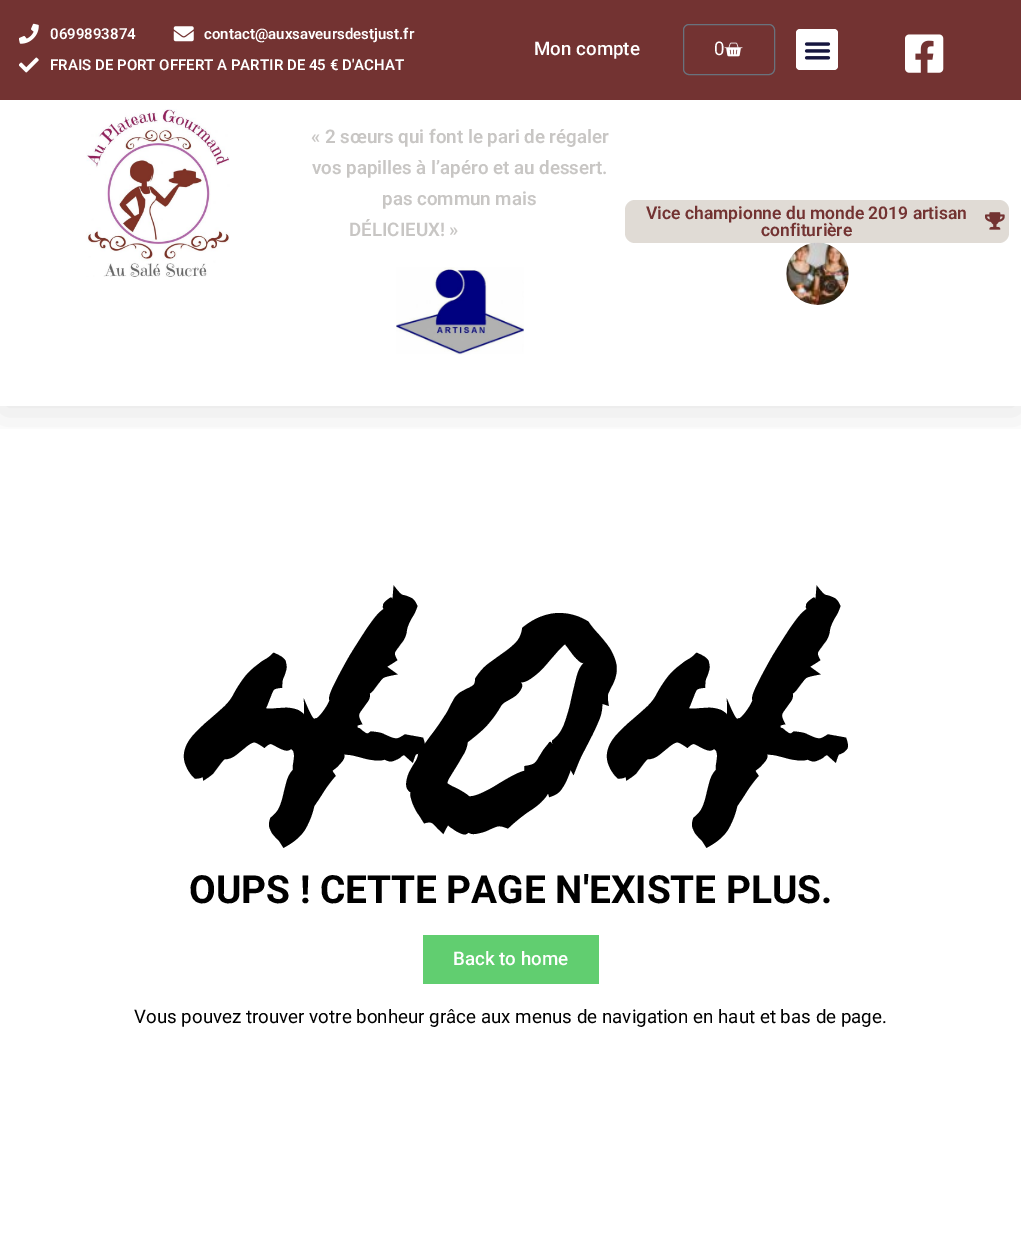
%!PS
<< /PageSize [1021 1259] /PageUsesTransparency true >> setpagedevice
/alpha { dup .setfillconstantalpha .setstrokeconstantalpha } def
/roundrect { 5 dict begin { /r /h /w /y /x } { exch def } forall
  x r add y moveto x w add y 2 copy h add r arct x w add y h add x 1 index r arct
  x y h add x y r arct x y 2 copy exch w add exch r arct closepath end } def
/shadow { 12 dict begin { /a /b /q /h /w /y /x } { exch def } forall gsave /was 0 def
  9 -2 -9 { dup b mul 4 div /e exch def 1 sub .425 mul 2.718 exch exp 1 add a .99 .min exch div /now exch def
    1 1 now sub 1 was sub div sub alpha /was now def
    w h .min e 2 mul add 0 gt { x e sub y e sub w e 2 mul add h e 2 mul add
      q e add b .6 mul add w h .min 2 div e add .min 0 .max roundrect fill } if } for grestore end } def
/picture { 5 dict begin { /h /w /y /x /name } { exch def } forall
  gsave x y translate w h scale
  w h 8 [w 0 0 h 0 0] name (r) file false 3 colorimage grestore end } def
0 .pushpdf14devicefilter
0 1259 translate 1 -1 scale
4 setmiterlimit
1 setgray
0 0 1021 1259 rectfill
gsave
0 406 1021 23 rectclip
0 setgray
0 6 1021 407 0 19 0.1 shadow
grestore
0.451 0.2 0.196 setrgbcolor
0 0 1021 100 rectfill
(img1.rgb) 19 23 20 21 picture
/Roboto-SemiBold [15 0 0 -15 0 0] selectfont
1 setgray
50 39 moveto (0699893874) show
(img2.rgb) 173 26 21 16 picture
204 39 moveto (contact@auxsaveursdestjust.fr) show
(img3.rgb) 19 57 20 16 picture
50 70 moveto (FRAIS DE PORT OFFERT A PARTIR DE 45 € D'ACHAT) show
/Roboto-Medium [18.75 0 0 -18.75 0 0] selectfont
534 55 moveto (Mon compte) show
0.412 0.447 0.49 setrgbcolor
683.5 24.5 91 50 5.5 roundrect stroke
/Roboto-Regular [18.75 0 0 -18.75 0 0] selectfont
1 setgray
714 55 moveto (0) show
(img4.rgb) 724 42 19 15 picture
796 29 42 41 4 roundrect fill
(img5.rgb) 804 42 27 18 picture
(img6.rgb) 905 34 39 39 picture
(img7.rgb) 86 109 144 168 picture
/Roboto-SemiBold [18.75 0 0 -18.75 0 0] selectfont
0.784 0.776 0.769 setrgbcolor
311 143 moveto (« 2 sœurs qui font le pari de régaler) show
312 174 moveto (vos papilles à l’apéro et au dessert.) show
382 205 moveto (pas commun mais) show
349 236 moveto (DÉLICIEUX! ») show
(img8.rgb) 396 267 128 88 picture
0.878 0.859 0.835 setrgbcolor
625 200 384 43 10 roundrect fill
/Roboto-SemiBold [17.5 0 0 -17.5 0 0] selectfont
0.451 0.2 0.196 setrgbcolor
646 219 moveto (Vice championne du monde 2019 artisan) show
761 236 moveto (confiturière) show
(img9.rgb) 985 212 20 18 picture
(img10.rgb) 786 242 63 63 picture
/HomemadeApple-Bold [374 0 0 -374 0 0] selectfont
0 setgray
186 867 moveto (404) show
/Roboto-Bold [38.75 0 0 -38.75 0 0] selectfont
189 903 moveto (OUPS ! CETTE PAGE N'EXISTE PLUS.) show
0.38 0.808 0.439 setrgbcolor
423 935 176 49 rectfill
/Roboto-Medium [18.75 0 0 -18.75 0 0] selectfont
1 setgray
453 965 moveto (Back to home) show
/Roboto-Regular [18.75 0 0 -18.75 0 0] selectfont
0 setgray
134 1023 moveto (Vous pouvez trouver votre bonheur grâce aux menus de navigation en haut et bas de page.) show
.poppdf14devicefilter showpage
